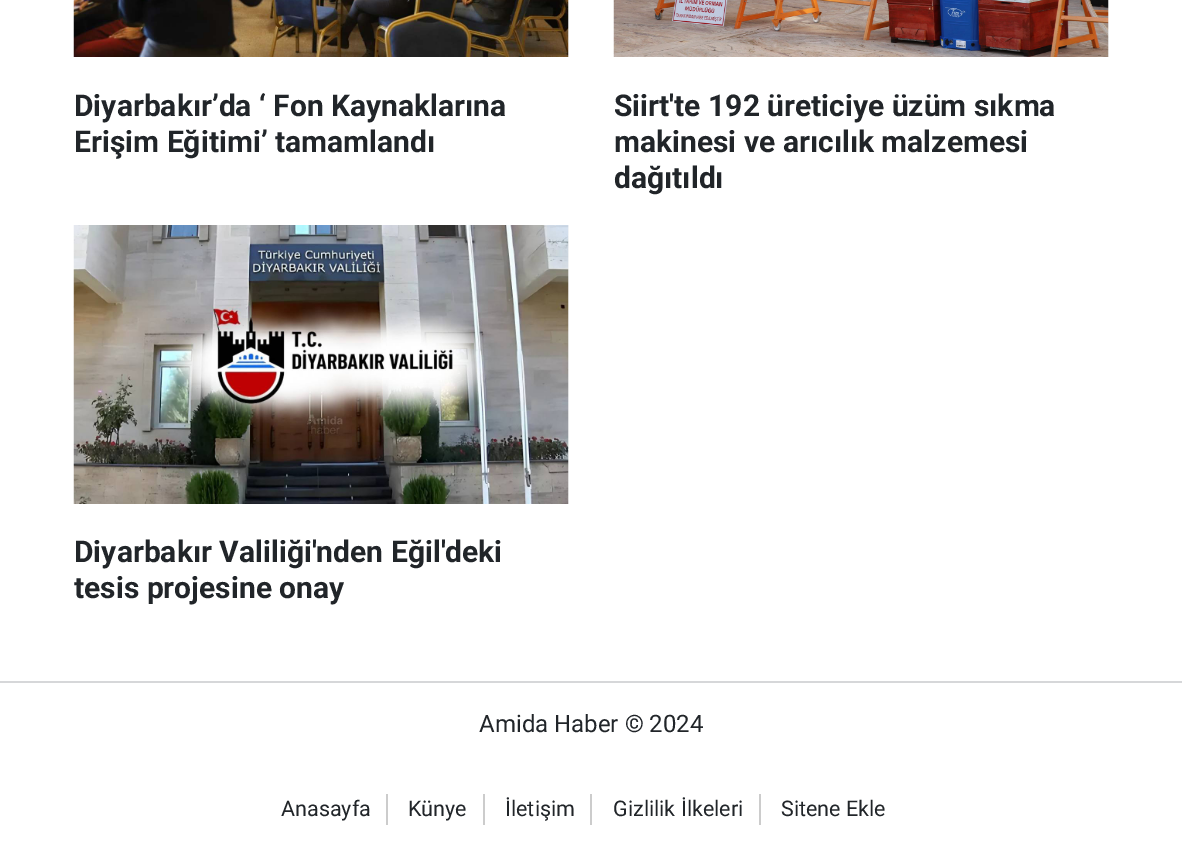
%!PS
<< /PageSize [1182 845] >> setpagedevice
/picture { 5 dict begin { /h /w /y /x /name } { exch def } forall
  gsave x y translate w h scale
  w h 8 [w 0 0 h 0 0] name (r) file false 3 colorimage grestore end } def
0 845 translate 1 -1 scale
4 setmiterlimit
1 setgray
0 0 1182 845 rectfill
0.973 setgray
568 0 1 57 rectfill
(img1.rgb) 73 0 496 57 picture
/Roboto-Bold [30 0 0 -30 0 0] selectfont
0.129 0.145 0.161 setrgbcolor
74 116 moveto (Diyarbakır’da ‘ Fon Kaynaklarına) show
74 152 moveto (Erişim Eğitimi’ tamamlandı) show
0.973 setgray
1108 0 1 57 rectfill
(img2.rgb) 613 0 496 57 picture
0.129 0.145 0.161 setrgbcolor
614 116 moveto (Siirt'te 192 üreticiye üzüm sıkma) show
614 152 moveto (makinesi ve arıcılık malzemesi) show
614 188 moveto (dağıtıldı) show
0.973 setgray
568 225 1 279 rectfill
(img3.rgb) 73 225 496 279 picture
0.129 0.145 0.161 setrgbcolor
74 562 moveto (Diyarbakır Valiliği'nden Eğil'deki) show
gsave
74 534 495 72 rectclip
74 598 moveto (tesis projesine onay) show
grestore
0.839 0.843 0.851 setrgbcolor
0 681 1182 2 rectfill
/Roboto-Regular [24 0 0 -24 0 0] selectfont
0.129 0.145 0.161 setrgbcolor
479 732 moveto (Amida Haber © 2024) show
0.8 setgray
386 794 2 31 rectfill
/Roboto-Regular [21.5 0 0 -21.5 0 0] selectfont
0.129 0.145 0.161 setrgbcolor
281 816 moveto (Anasayfa) show
0.8 setgray
483 794 2 31 rectfill
0.129 0.145 0.161 setrgbcolor
408 816 moveto (Künye) show
0.8 setgray
590 794 2 31 rectfill
0.129 0.145 0.161 setrgbcolor
505 816 moveto (İletişim) show
0.8 setgray
759 794 2 31 rectfill
0.129 0.145 0.161 setrgbcolor
613 816 moveto (Gizlilik İlkeleri) show
781 816 moveto (Sitene Ekle) show
showpage
